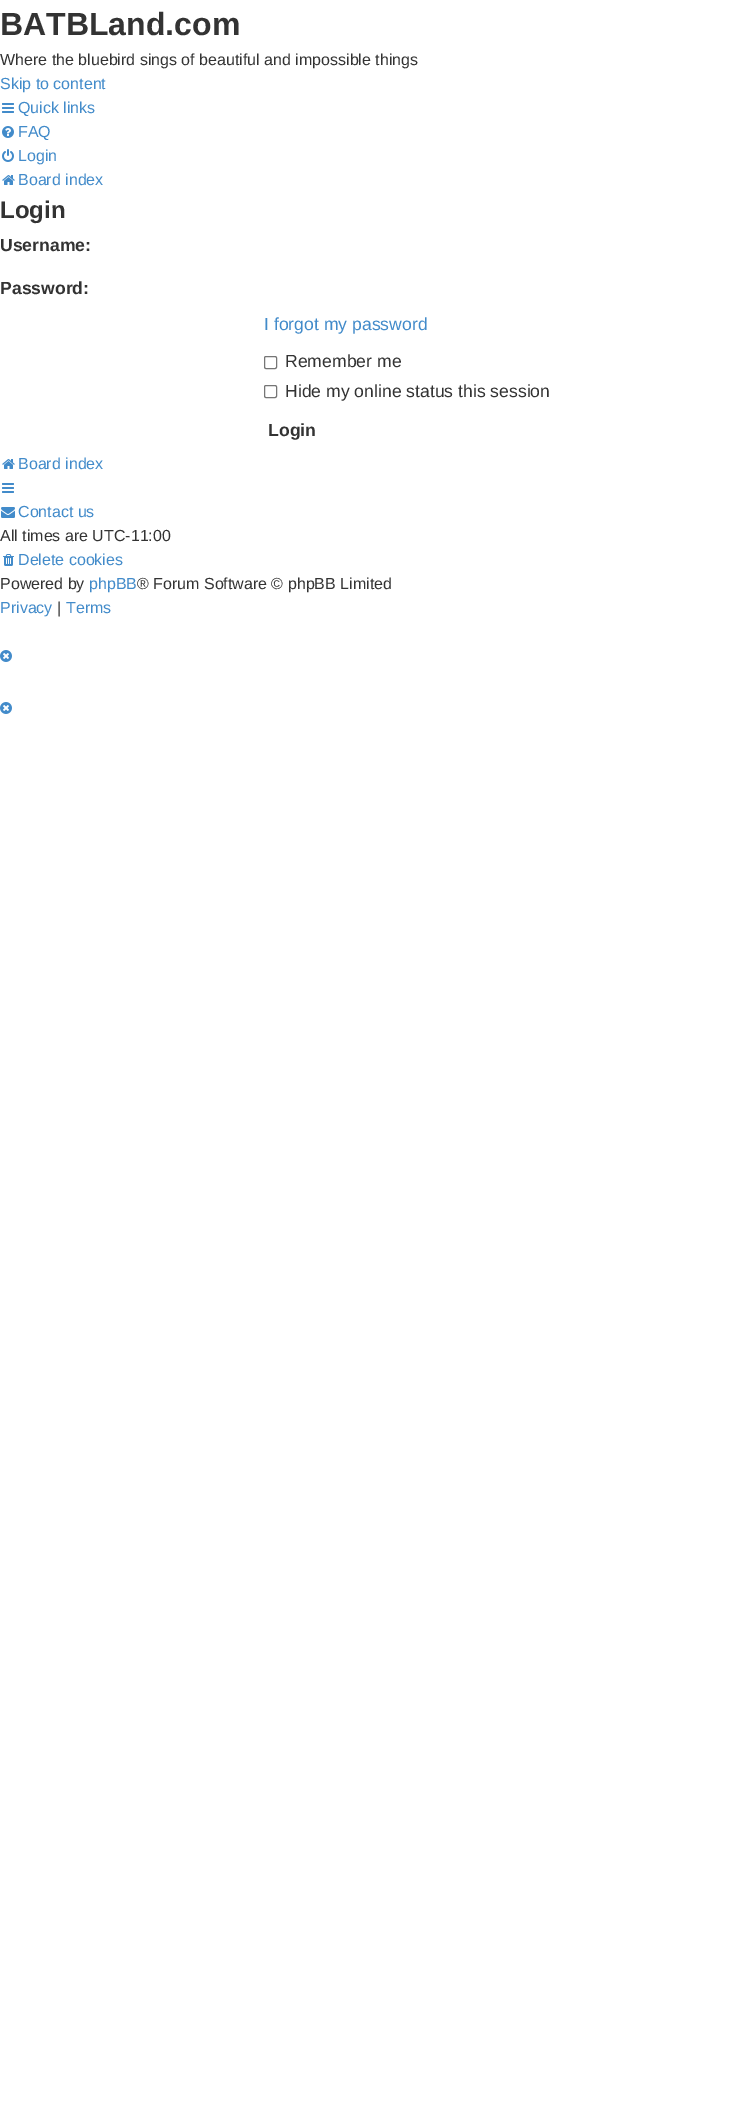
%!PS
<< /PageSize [756 2112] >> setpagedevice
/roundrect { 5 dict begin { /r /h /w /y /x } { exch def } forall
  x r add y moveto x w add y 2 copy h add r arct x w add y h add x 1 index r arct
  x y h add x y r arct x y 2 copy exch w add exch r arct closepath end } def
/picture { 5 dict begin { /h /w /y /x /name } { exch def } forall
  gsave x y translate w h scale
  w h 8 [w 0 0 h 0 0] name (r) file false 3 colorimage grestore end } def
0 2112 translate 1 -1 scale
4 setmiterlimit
1 setgray
0 0 756 2112 rectfill
/LiberationSans-Bold [32 0 0 -32 0 0] selectfont
0.2 setgray
0 35 moveto (BATBLand.com) show
/LiberationSans-Regular [16 0 0 -16 0 0] selectfont
0 65 moveto (Where the bluebird sings of beautiful and impossible things) show
0.259 0.545 0.792 setrgbcolor
0 89 moveto (Skip to content) show
(img1.rgb) 2 103 12 10 picture
18 113 moveto (Quick links) show
(img2.rgb) 2 126 12 12 picture
18 137 moveto (FAQ) show
(img3.rgb) 2 149 12 13 picture
18 161 moveto (Login) show
(img4.rgb) 2 175 13 10 picture
18 185 moveto (Board index) show
/LiberationSans-Bold [24 0 0 -24 0 0] selectfont
0.2 setgray
0 218 moveto (Login) show
/LiberationSans-Bold [17.6 0 0 -17.6 0 0] selectfont
0 251 moveto (Username:) show
0 294 moveto (Password:) show
/LiberationSans-Regular [17.6 0 0 -17.6 0 0] selectfont
0.259 0.545 0.792 setrgbcolor
264 330 moveto (I forgot my password) show
0.463 setgray
264.5 356.5 12 12 1.5 roundrect stroke
0.2 setgray
285 367 moveto (Remember me) show
0.463 setgray
264.5 385.5 12 12 1.5 roundrect stroke
0.2 setgray
285 397 moveto (Hide my online status this session) show
/LiberationSans-Bold [17.6 0 0 -17.6 0 0] selectfont
268 436 moveto (Login) show
(img4.rgb) 2 459 13 10 picture
/LiberationSans-Regular [16 0 0 -16 0 0] selectfont
0.259 0.545 0.792 setrgbcolor
18 469 moveto (Board index) show
(img1.rgb) 2 483 12 10 picture
(img5.rgb) 1 507 14 11 picture
18 517 moveto (Contact us) show
0.2 setgray
0 541 moveto (All times are UTC-11:00) show
(img6.rgb) 3 554 11 12 picture
0.259 0.545 0.792 setrgbcolor
18 565 moveto (Delete cookies) show
0.2 setgray
0 589 moveto (Powered by) show
0.259 0.545 0.792 setrgbcolor
89 589 moveto (phpBB) show
0.2 setgray
137 589 moveto (® Forum Software © phpBB Limited) show
0.259 0.545 0.792 setrgbcolor
0 613 moveto (Privacy) show
0.2 setgray
57 613 moveto (|) show
0.259 0.545 0.792 setrgbcolor
66 613 moveto (Terms) show
(img7.rgb) 0 650 12 12 picture
(img7.rgb) 0 702 12 12 picture
showpage
